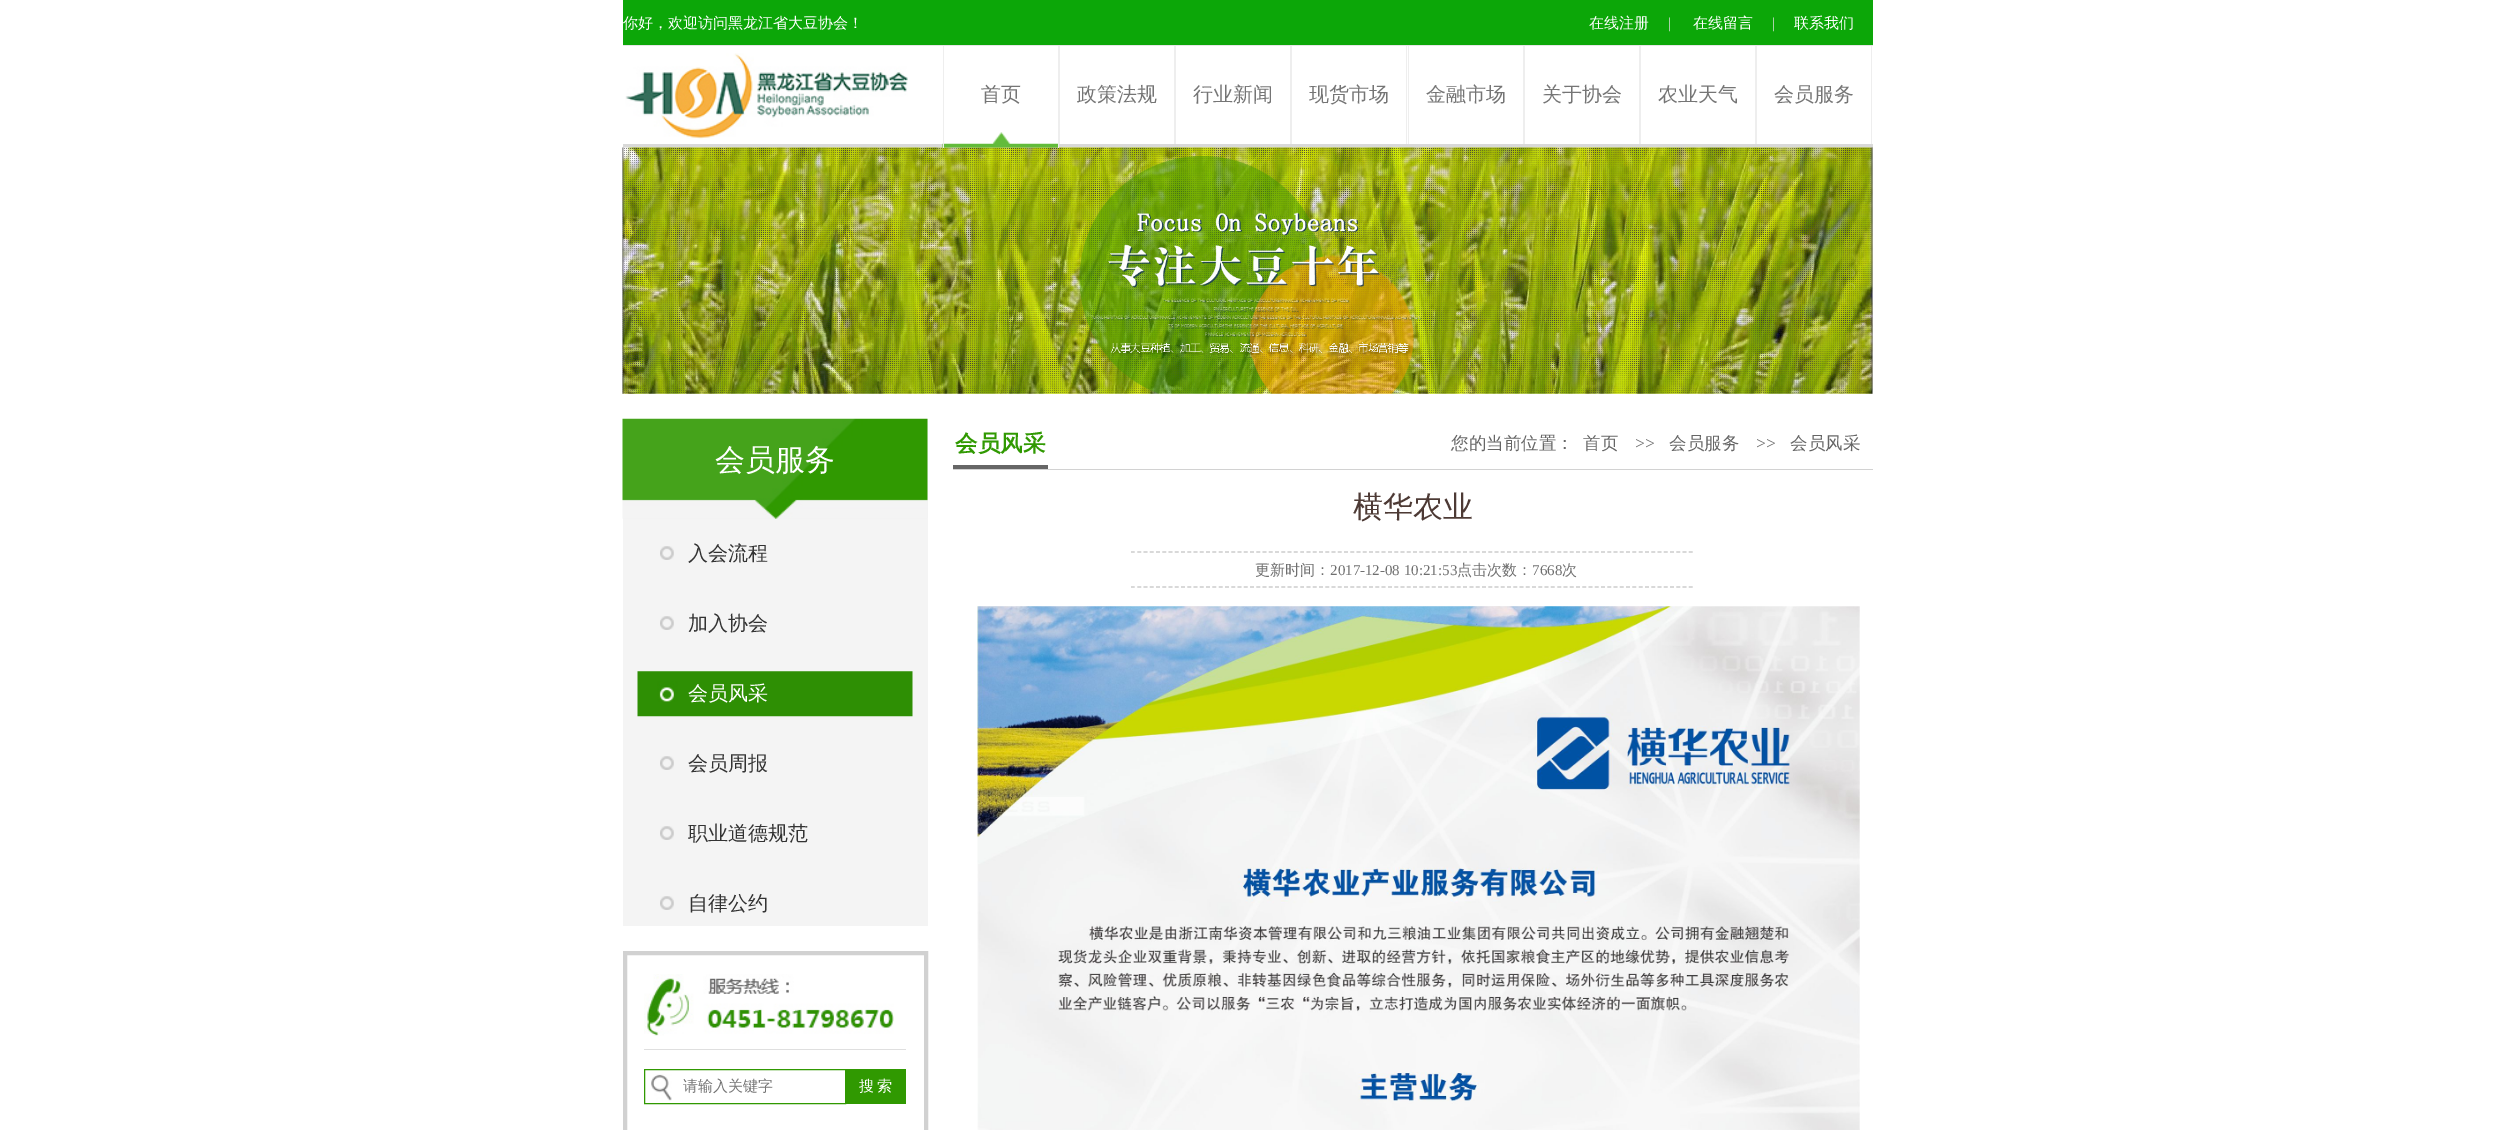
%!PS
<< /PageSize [2495 1130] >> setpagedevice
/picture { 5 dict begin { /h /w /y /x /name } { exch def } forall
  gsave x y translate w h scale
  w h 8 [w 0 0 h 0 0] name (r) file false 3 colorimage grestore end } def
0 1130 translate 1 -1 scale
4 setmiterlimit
1 setgray
0 0 2495 1130 rectfill
0.047 0.655 0.031 setrgbcolor
623 0 1250 45 rectfill
0.902 setgray
623 45 1250 1 rectfill
/WenQuanYiZenHei-Medium [15 0 0 -15 0 0] selectfont
1 setgray
623 28 moveto (你好，欢迎访问黑龙江省大豆协会！) show
1589 28 moveto (在线注册) show
/LiberationSerif-Regular [15 0 0 -15 0 0] selectfont
0.882 setgray
1668 28 moveto (|) show
/WenQuanYiZenHei-Medium [15 0 0 -15 0 0] selectfont
1 setgray
1693 28 moveto (在线留言) show
/LiberationSerif-Regular [15 0 0 -15 0 0] selectfont
0.882 setgray
1772 28 moveto (|) show
/WenQuanYiZenHei-Medium [15 0 0 -15 0 0] selectfont
1 setgray
1794 28 moveto (联系我们) show
(img1.rgb) 625 53 283 86 picture
0.851 0.851 0.847 setrgbcolor
623 144 1250 4 rectfill
(img3.rgb) 622 147 1251 247 picture
(img2.rgb) 942 132 116 16 picture
0.933 setgray
1058 46 1 102 rectfill
943 46 1 102 rectfill
/WenQuanYiZenHei-Medium [20 0 0 -20 0 0] selectfont
0.459 setgray
981 101 moveto (首页) show
0.933 setgray
1174 46 2 98 rectfill
1059 46 1 98 rectfill
0.459 setgray
1077 101 moveto (政策法规) show
0.933 setgray
1290 46 2 98 rectfill
0.459 setgray
1193 101 moveto (行业新闻) show
0.933 setgray
1406 46 1 98 rectfill
0.459 setgray
1309 101 moveto (现货市场) show
0.933 setgray
1523 46 2 98 rectfill
1408 46 1 98 rectfill
0.459 setgray
1426 101 moveto (金融市场) show
0.933 setgray
1639 46 2 98 rectfill
0.459 setgray
1542 101 moveto (关于协会) show
0.933 setgray
1755 46 2 98 rectfill
0.459 setgray
1658 101 moveto (农业天气) show
0.933 setgray
1871 46 1 98 rectfill
0.459 setgray
1774 101 moveto (会员服务) show
0.957 setgray
623 419 305 507 rectfill
(img4.rgb) 622 418 306 101 picture
/WenQuanYiZenHei-Medium [30 0 0 -30 0 0] selectfont
1 setgray
715 470 moveto (会员服务) show
(img5.rgb) 660 546 14 14 picture
/WenQuanYiZenHei-Medium [20 0 0 -20 0 0] selectfont
0.2 setgray
688 560 moveto (入会流程) show
(img5.rgb) 660 616 14 14 picture
688 630 moveto (加入协会) show
(img6.rgb) 637 671 276 46 picture
1 setgray
688 700 moveto (会员风采) show
(img5.rgb) 660 756 14 14 picture
0.2 setgray
688 770 moveto (会员周报) show
(img5.rgb) 660 826 14 14 picture
688 840 moveto (职业道德规范) show
(img5.rgb) 660 896 14 14 picture
688 910 moveto (自律公约) show
0.82 setgray
4 setlinewidth
625 953 301 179 rectstroke
(img7.rgb) 644 974 250 62 picture
0.875 setgray
644 1049 262 1 rectfill
(img8.rgb) 651 1074 21 27 picture
0.188 0.6 0.004 setrgbcolor
1 setlinewidth
644.5 1069.5 201 34 rectstroke
/WenQuanYiZenHei-Medium [15 0 0 -15 0 0] selectfont
0.459 setgray
683 1091 moveto (请输入关键字) show
0.188 0.6 0.004 setrgbcolor
846 1069 60 35 rectfill
1 setgray
859 1091 moveto -1 0 32 (搜 索) widthshow
0.824 setgray
953 469 920 1 rectfill
/WenQuanYiZenHei-Bold [22.5 0 0 -22.5 0 0] selectfont
0.188 0.6 0.004 setrgbcolor
955 451 moveto (会员风采) show
0.4 setgray
953 465 95 4 rectfill
/WenQuanYiZenHei-Medium [17.5 0 0 -17.5 0 0] selectfont
1451 449 moveto (您的当前位置：) show
1583 449 moveto (首页) show
/LiberationSerif-Regular [17.5 0 0 -17.5 0 0] selectfont
1635 449 moveto (>>) show
/WenQuanYiZenHei-Medium [17.5 0 0 -17.5 0 0] selectfont
1669 449 moveto (会员服务) show
/LiberationSerif-Regular [17.5 0 0 -17.5 0 0] selectfont
1756 449 moveto (>>) show
/WenQuanYiZenHei-Medium [17.5 0 0 -17.5 0 0] selectfont
1790 449 moveto (会员风采) show
/WenQuanYiZenHei-Medium [30 0 0 -30 0 0] selectfont
0.302 0.227 0.208 setrgbcolor
1353 517 moveto (横华农业) show
0.8 setgray
1.2 setlinewidth
[3.75 2.52] 0 setdash
newpath 1131 552 moveto 1694 552 lineto stroke
newpath 1131 587 moveto 1694 587 lineto stroke
/WenQuanYiZenHei-Medium [15 0 0 -15 0 0] selectfont
0.435 setgray
1255 575 moveto (更新时间：) show
/LiberationSerif-Regular [15 0 0 -15 0 0] selectfont
1330 575 moveto (2017-12-08 10:21:53) show
/WenQuanYiZenHei-Medium [15 0 0 -15 0 0] selectfont
1457 575 moveto (点击次数：) show
/LiberationSerif-Regular [15 0 0 -15 0 0] selectfont
1532 575 moveto (7668) show
/WenQuanYiZenHei-Medium [15 0 0 -15 0 0] selectfont
1562 575 moveto (次) show
(img9.rgb) 977 606 883 524 picture
showpage
